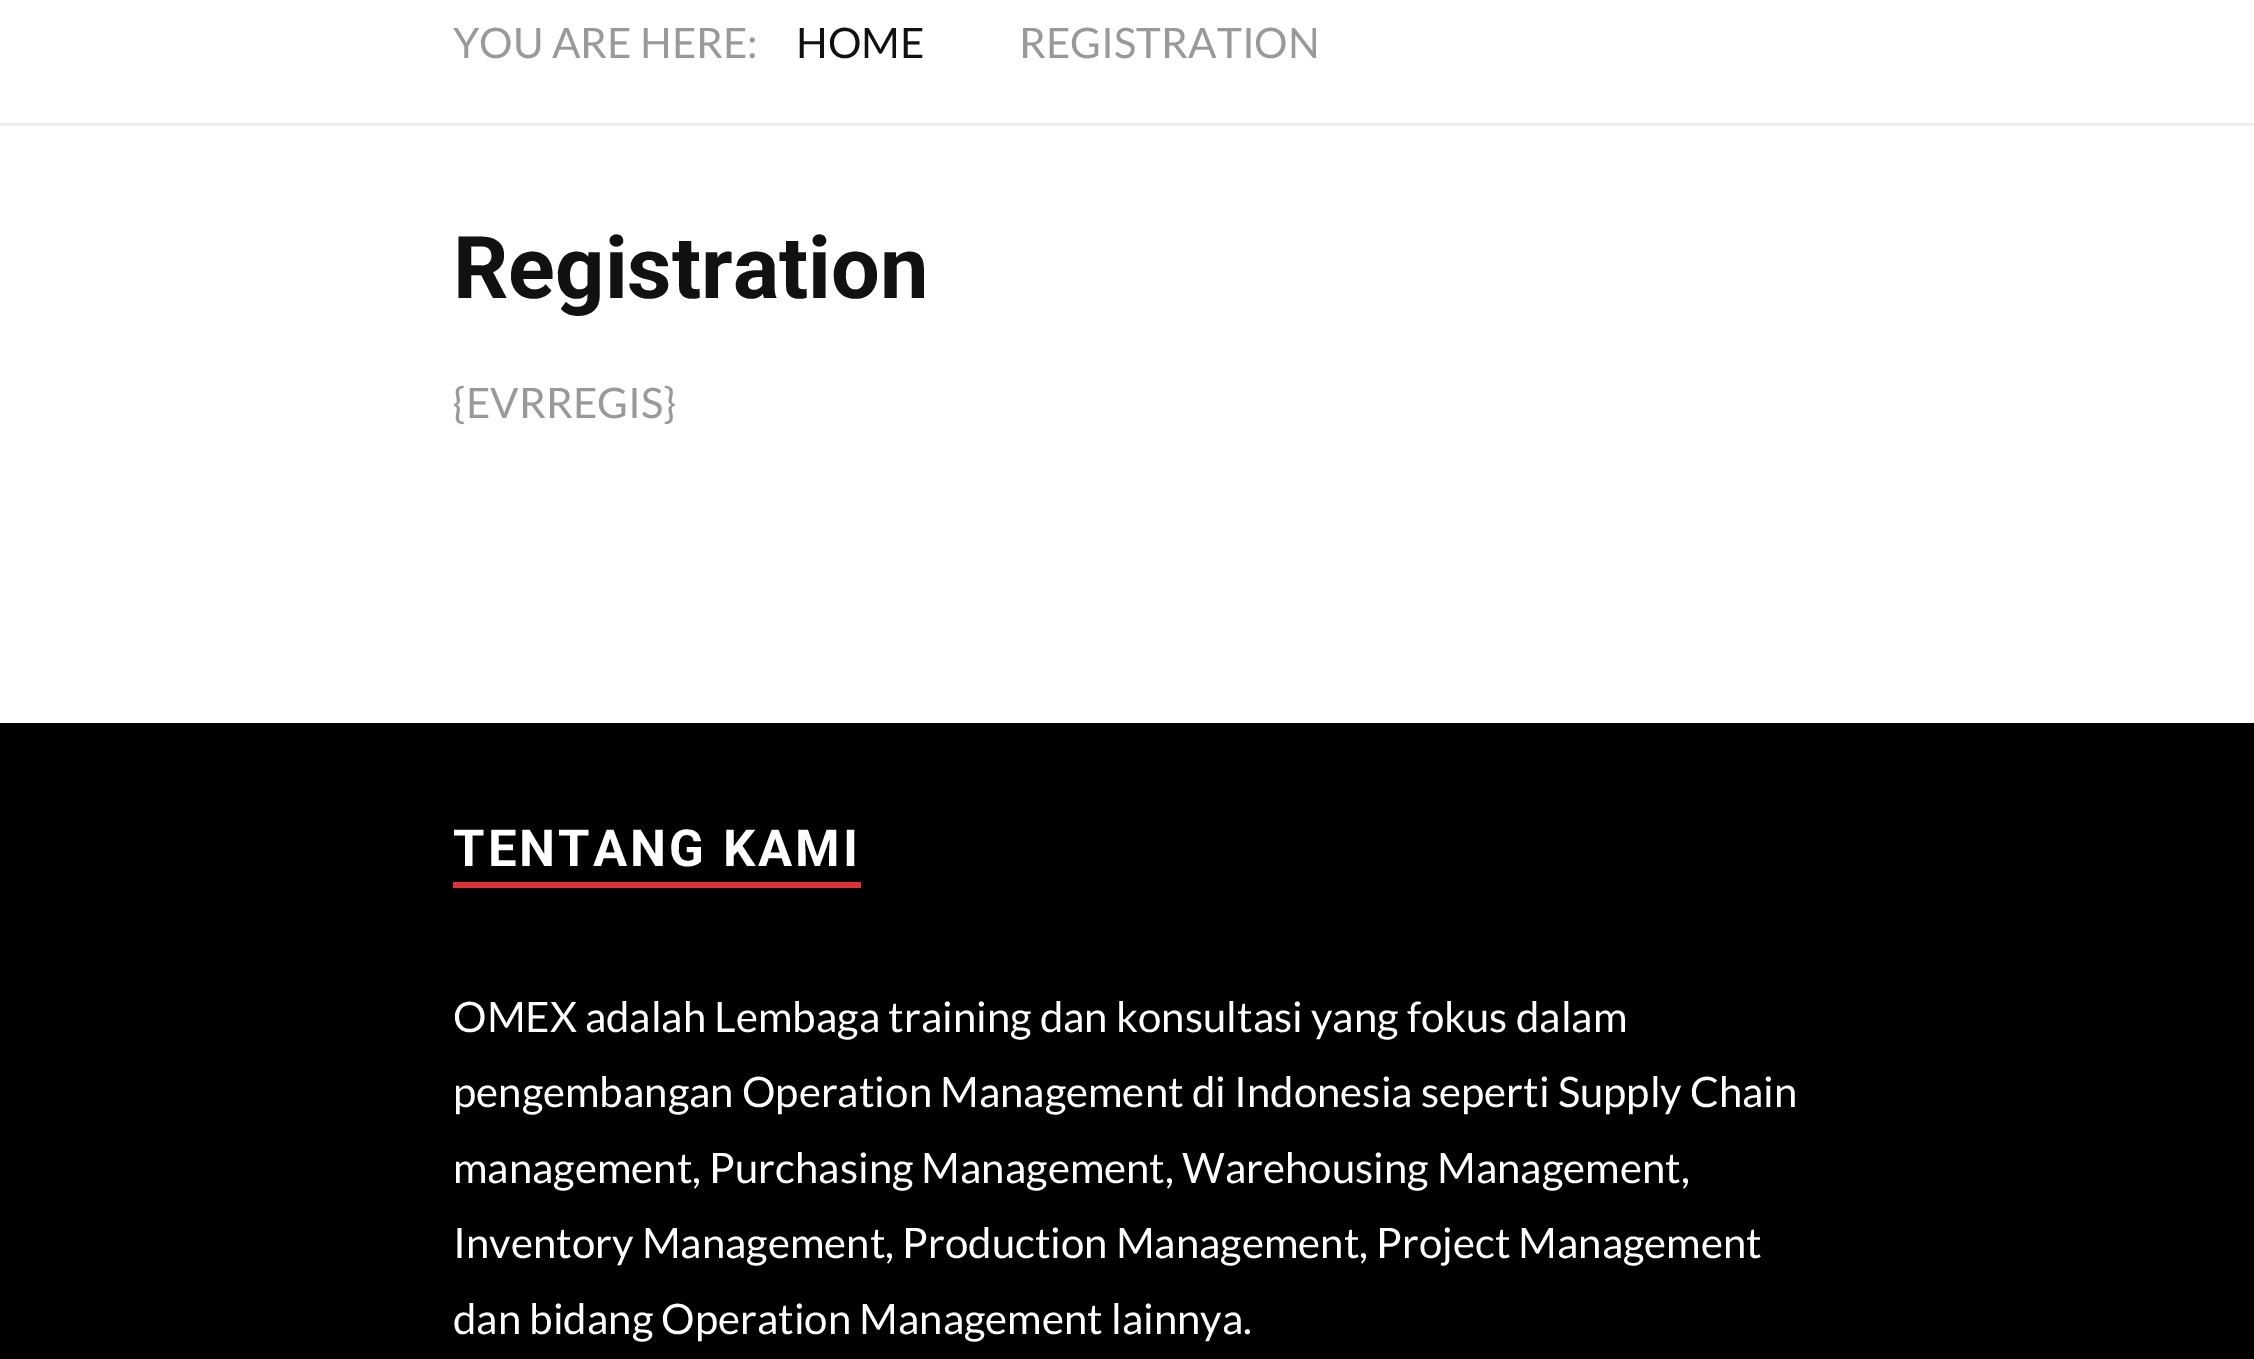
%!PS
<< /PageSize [2254 1359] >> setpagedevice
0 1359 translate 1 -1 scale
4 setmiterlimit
1 setgray
0 0 2254 1359 rectfill
0.933 setgray
0 123 2254 3 rectfill
/Lato-Regular [42 0 0 -42 0 0] selectfont
0.6 setgray
453 58 moveto (YOU ARE HERE:) show
0.067 setgray
796 58 moveto (HOME) show
0.6 setgray
1019 58 moveto (REGISTRATION) show
/Roboto-Bold [86.5 0 0 -86.5 0 0] selectfont
0.067 setgray
453 298 moveto (Registration) show
/Lato-Regular [42 0 0 -42 0 0] selectfont
0.6 setgray
453 418 moveto ({EVRREGIS}) show
0 setgray
0 723 2254 636 rectfill
/Roboto-Bold [51 0 0 -51 0 0] selectfont
1 setgray
453 866 moveto 3 0 (TENTANG KAMI) ashow
0.867 0.2 0.2 setrgbcolor
453 882 408 6 rectfill
/Lato-Regular [42 0 0 -42 0 0] selectfont
1 setgray
453 1032 moveto (OMEX adalah Lembaga training dan konsultasi yang fokus dalam) show
453 1107 moveto (pengembangan Operation Management di Indonesia seperti Supply Chain) show
453 1183 moveto (management, Purchasing Management, Warehousing Management,) show
453 1258 moveto (Inventory Management, Production Management, Project Management) show
453 1334 moveto (dan bidang Operation Management lainnya.) show
showpage
